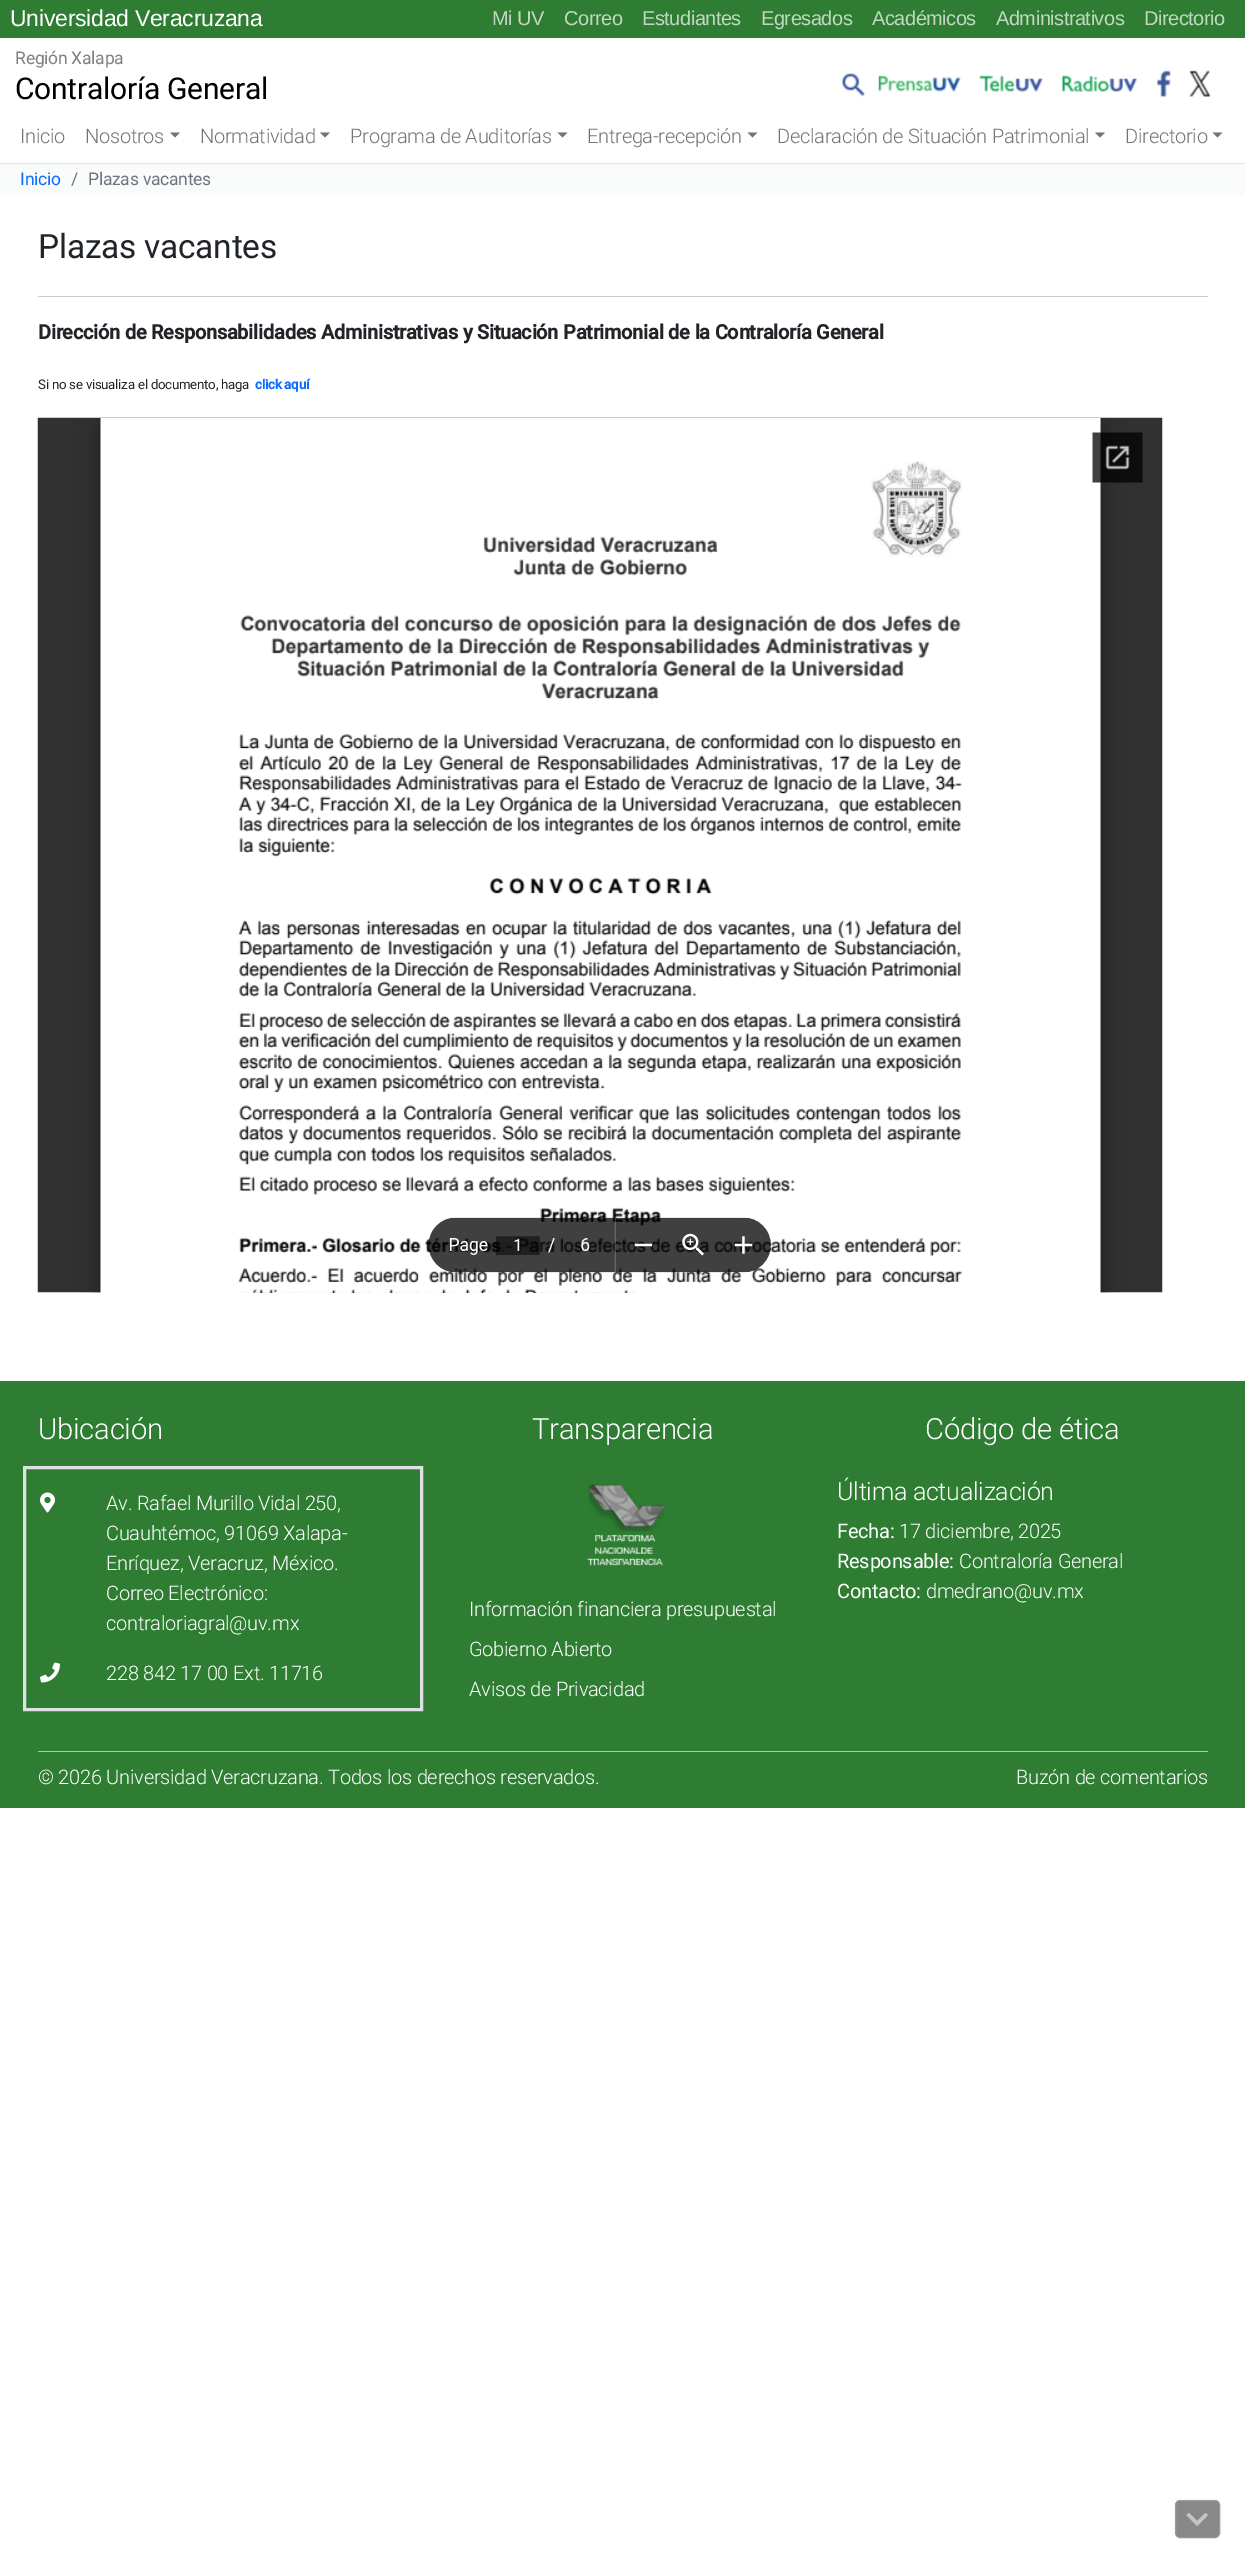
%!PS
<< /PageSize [1245 2562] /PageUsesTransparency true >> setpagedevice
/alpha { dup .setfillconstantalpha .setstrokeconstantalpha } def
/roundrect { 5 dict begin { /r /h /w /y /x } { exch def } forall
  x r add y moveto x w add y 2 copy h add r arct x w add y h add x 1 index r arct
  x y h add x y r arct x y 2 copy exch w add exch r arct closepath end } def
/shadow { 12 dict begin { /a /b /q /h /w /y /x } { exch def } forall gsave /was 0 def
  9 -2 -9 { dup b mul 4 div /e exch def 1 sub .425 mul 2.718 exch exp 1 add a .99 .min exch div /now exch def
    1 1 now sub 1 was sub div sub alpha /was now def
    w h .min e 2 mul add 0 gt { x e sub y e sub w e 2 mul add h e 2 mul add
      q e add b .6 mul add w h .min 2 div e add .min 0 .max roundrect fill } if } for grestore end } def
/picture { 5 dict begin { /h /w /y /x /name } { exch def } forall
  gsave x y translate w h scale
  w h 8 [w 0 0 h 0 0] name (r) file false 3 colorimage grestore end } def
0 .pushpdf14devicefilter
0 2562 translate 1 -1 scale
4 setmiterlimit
1 setgray
0 0 1245 2562 rectfill
0.98 0.984 0.984 setrgbcolor
0 163 1245 33 rectfill
0 setgray
0 1 1245 163 0 0.5 0.1 shadow
0.18 0.49 0.196 setrgbcolor
0 0 1245 38 rectfill
/LiberationSans-Regular [23 0 0 -23 0 0] selectfont
1 setgray
10 26 moveto -0.25 0 (Universidad Veracruzana) ashow
/LiberationSans-Regular [20 0 0 -20 0 0] selectfont
0.753 0.847 0.761 setrgbcolor
492 25 moveto -0.5 0 (Mi UV) ashow
564 25 moveto -0.5 0 (Correo) ashow
642 25 moveto -0.5 0 (Estudiantes) ashow
761 25 moveto -0.5 0 (Egresados) ashow
872 25 moveto -0.5 0 (Académicos) ashow
996 25 moveto -0.5 0 (Administrativos) ashow
1144 25 moveto -0.5 0 (Directorio) ashow
1 setgray
0 38 1245 125 rectfill
/Roboto-Regular [17.5 0 0 -17.5 0 0] selectfont
0.502 setgray
15 64 moveto -0.25 0 (Región Xalapa) ashow
/Roboto-Regular [30 0 0 -30 0 0] selectfont
0 setgray
15 99 moveto -0.25 0 (Contraloría General) ashow
(img1.rgb) 841 73 25 24 picture
(img2.rgb) 878 75 83 17 picture
(img3.rgb) 979 75 64 17 picture
(img4.rgb) 1061 75 76 17 picture
(img5.rgb) 1156 70 15 27 picture
(img6.rgb) 1189 70 22 27 picture
/Roboto-Light [20 0 0 -20 0 0] selectfont
0.451 setgray
20 143 moveto -0.25 0 (Inicio) ashow
85 143 moveto -0.25 0 (Nosotros) ashow
newpath 170 132.5 moveto 180 132.5 lineto 175 137.5 lineto closepath fill
200 143 moveto -0.25 0 (Normatividad) ashow
newpath 320 132.5 moveto 330 132.5 lineto 325 137.5 lineto closepath fill
350 143 moveto -0.25 0 (Programa de Auditorías) ashow
newpath 557.5 132.5 moveto 567.5 132.5 lineto 562.5 137.5 lineto closepath fill
587 143 moveto -0.25 0 (Entrega-recepción) ashow
newpath 747.5 132.5 moveto 757.5 132.5 lineto 752.5 137.5 lineto closepath fill
777 143 moveto -0.25 0 (Declaración de Situación Patrimonial) ashow
newpath 1095 132.5 moveto 1105 132.5 lineto 1100 137.5 lineto closepath fill
1125 143 moveto -0.25 0 (Directorio) ashow
newpath 1212.5 132.5 moveto 1222.5 132.5 lineto 1217.5 137.5 lineto closepath fill
/Roboto-Regular [17.5 0 0 -17.5 0 0] selectfont
0.051 0.431 0.992 setrgbcolor
20 185 moveto -0.25 0 (Inicio) ashow
0.424 0.459 0.49 setrgbcolor
71 185 moveto -0.25 0 (/) ashow
88 185 moveto -0.25 0 (Plazas vacantes) ashow
/Roboto-Regular [33.5 0 0 -33.5 0 0] selectfont
0.129 0.145 0.161 setrgbcolor
38 258 moveto -0.25 0 (Plazas vacantes) ashow
0.784 0.788 0.792 setrgbcolor
38 296 1170 1 rectfill
/Roboto-Bold [20 0 0 -20 0 0] selectfont
0.129 0.145 0.161 setrgbcolor
38 339 moveto -0.25 0 (Dirección de Responsabilidades Administrativas y Situación Patrimonial de la Contraloría General) ashow
/Roboto-Regular [13.3 0 0 -13.3 0 0] selectfont
38 389 moveto -0.25 0 (Si no se visualiza el documento, haga) ashow
/Roboto-Bold [13.3 0 0 -13.3 0 0] selectfont
0.051 0.431 0.992 setrgbcolor
255 389 moveto -0.25 0 (click aquí) ashow
(img7.rgb) 37 417 1126 876 picture
0.18 0.49 0.196 setrgbcolor
0 1381 1245 427 rectfill
/Roboto-Light [29.25 0 0 -29.25 0 0] selectfont
1 setgray
38 1439 moveto -0.25 0 (Ubicación) ashow
0.871 0.886 0.902 setrgbcolor
3 setlinewidth
24.5 1467.5 397 242 rectstroke
(img8.rgb) 40 1492 15 21 picture
/Roboto-Light [20 0 0 -20 0 0] selectfont
1 setgray
106 1510 moveto -0.25 0 (Av. Rafael Murillo Vidal 250,) ashow
106 1540 moveto -0.25 0 (Cuauhtémoc, 91069 Xalapa-) ashow
106 1570 moveto -0.25 0 (Enríquez, Veracruz, México.) ashow
106 1600 moveto -0.25 0 (Correo Electrónico:) ashow
106 1630 moveto -0.25 0 (contraloriagral@uv.mx) ashow
(img9.rgb) 40 1662 20 21 picture
106 1680 moveto -0.25 0 (228 842 17 00 Ext. 11716) ashow
/Roboto-Light [29.25 0 0 -29.25 0 0] selectfont
532 1439 moveto -0.25 0 (Transparencia) ashow
(img10.rgb) 587 1484 79 82 picture
/Roboto-Light [20 0 0 -20 0 0] selectfont
469 1616 moveto -0.25 0 (Información financiera presupuestal) ashow
469 1656 moveto -0.25 0 (Gobierno Abierto) ashow
469 1696 moveto -0.25 0 (Avisos de Privacidad) ashow
/Roboto-Light [29.25 0 0 -29.25 0 0] selectfont
925 1439 moveto -0.25 0 (Código de ética) ashow
/Roboto-Light [25 0 0 -25 0 0] selectfont
837 1500 moveto -0.25 0 (Última actualización) ashow
/Roboto-Regular [20 0 0 -20 0 0] selectfont
837 1538 moveto -0.25 0 (Fecha:) ashow
/Roboto-Light [20 0 0 -20 0 0] selectfont
899 1538 moveto -0.25 0 (17 diciembre, 2025) ashow
/Roboto-Regular [20 0 0 -20 0 0] selectfont
837 1568 moveto -0.25 0 (Responsable:) ashow
/Roboto-Light [20 0 0 -20 0 0] selectfont
959 1568 moveto -0.25 0 (Contraloría General) ashow
/Roboto-Regular [20 0 0 -20 0 0] selectfont
837 1598 moveto -0.25 0 (Contacto:) ashow
/Roboto-Light [20 0 0 -20 0 0] selectfont
926 1598 moveto -0.25 0 (dmedrano@uv.mx) ashow
0.671 0.796 0.678 setrgbcolor
38 1751 1170 1 rectfill
1 setgray
38 1784 moveto -0.25 0 (© 2026 Universidad Veracruzana. Todos los derechos reservados.) ashow
1016 1784 moveto -0.25 0 (Buzón de comentarios) ashow
0.502 setgray
1175 2500 45 38 5 2.5 0.1 shadow
0.533 setgray
1175.5 2500.5 44 37 4.5 roundrect gsave fill grestore
0.6 setgray
1 setlinewidth
stroke
(img11.rgb) 1186 2513 22 13 picture
.poppdf14devicefilter showpage
